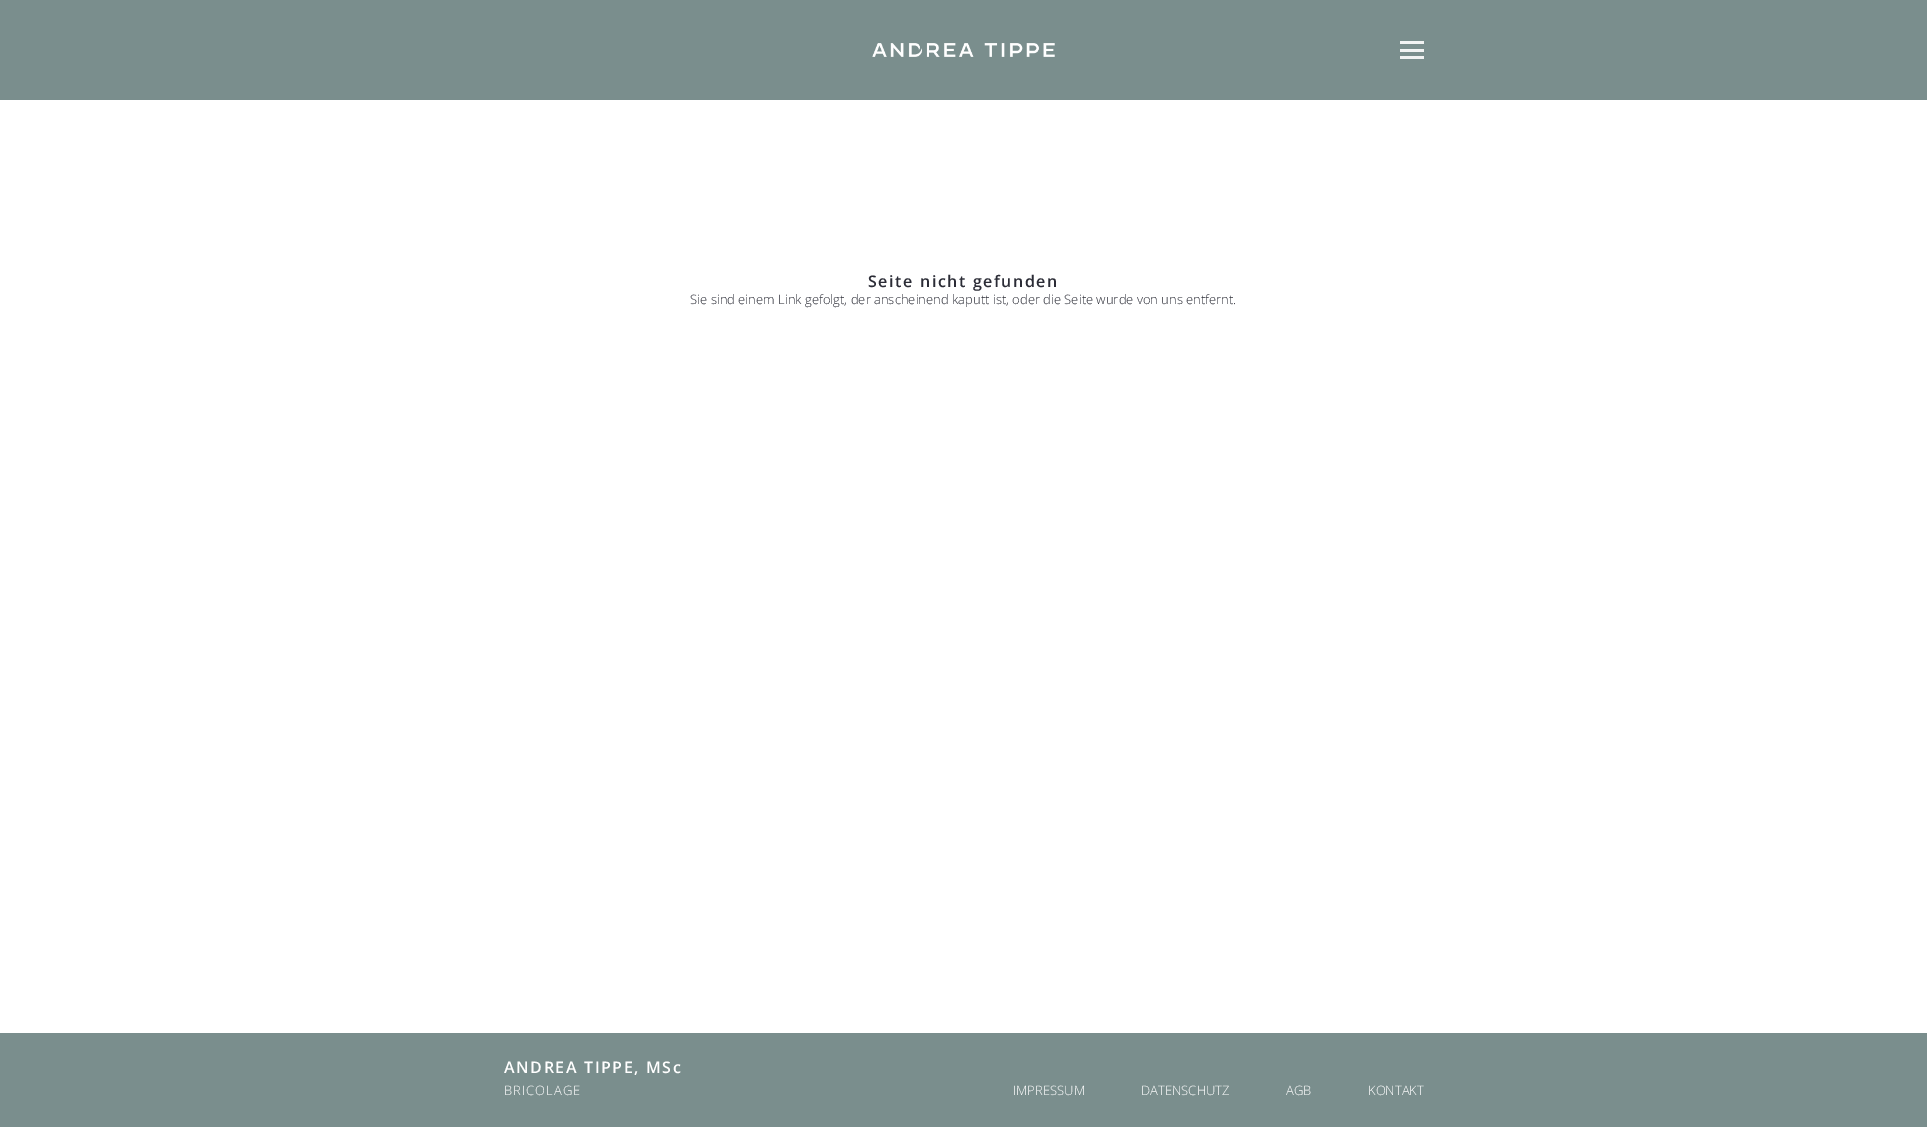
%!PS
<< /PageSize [1927 1127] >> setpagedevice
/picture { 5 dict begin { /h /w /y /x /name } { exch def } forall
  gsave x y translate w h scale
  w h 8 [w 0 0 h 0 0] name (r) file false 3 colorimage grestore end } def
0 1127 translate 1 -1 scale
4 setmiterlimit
1 setgray
0 0 1927 1127 rectfill
0.478 0.557 0.553 setrgbcolor
0 0 1927 100 rectfill
(img1.rgb) 872 43 183 14 picture
0.949 0.953 0.953 setrgbcolor
1400 49 24 3 rectfill
1400 41 24 3 rectfill
1400 56 24 3 rectfill
/OpenSans-SemiBold [16 0 0 -16 0 0] selectfont
0.169 0.173 0.212 setrgbcolor
868 287 moveto 1.6 0 (Seite nicht gefunden) ashow
/OpenSans-Light [13 0 0 -13 0 0] selectfont
690 304 moveto (Sie sind einem Link gefolgt, der anscheinend kaputt ist, oder die Seite wurde von uns entfernt.) show
0.478 0.557 0.553 setrgbcolor
0 1033 1927 94 rectfill
/OpenSans-SemiBold [16 0 0 -16 0 0] selectfont
1 setgray
504 1073 moveto 1.6 0 (ANDREA TIPPE, MSc) ashow
/OpenSans-Light [13 0 0 -13 0 0] selectfont
504 1095 moveto 1 0 (BRICOLAGE) ashow
1013 1095 moveto (IMPRESSUM) show
1141 1095 moveto (DATENSCHUTZ) show
1286 1095 moveto (AGB) show
1368 1095 moveto (KONTAKT) show
showpage
